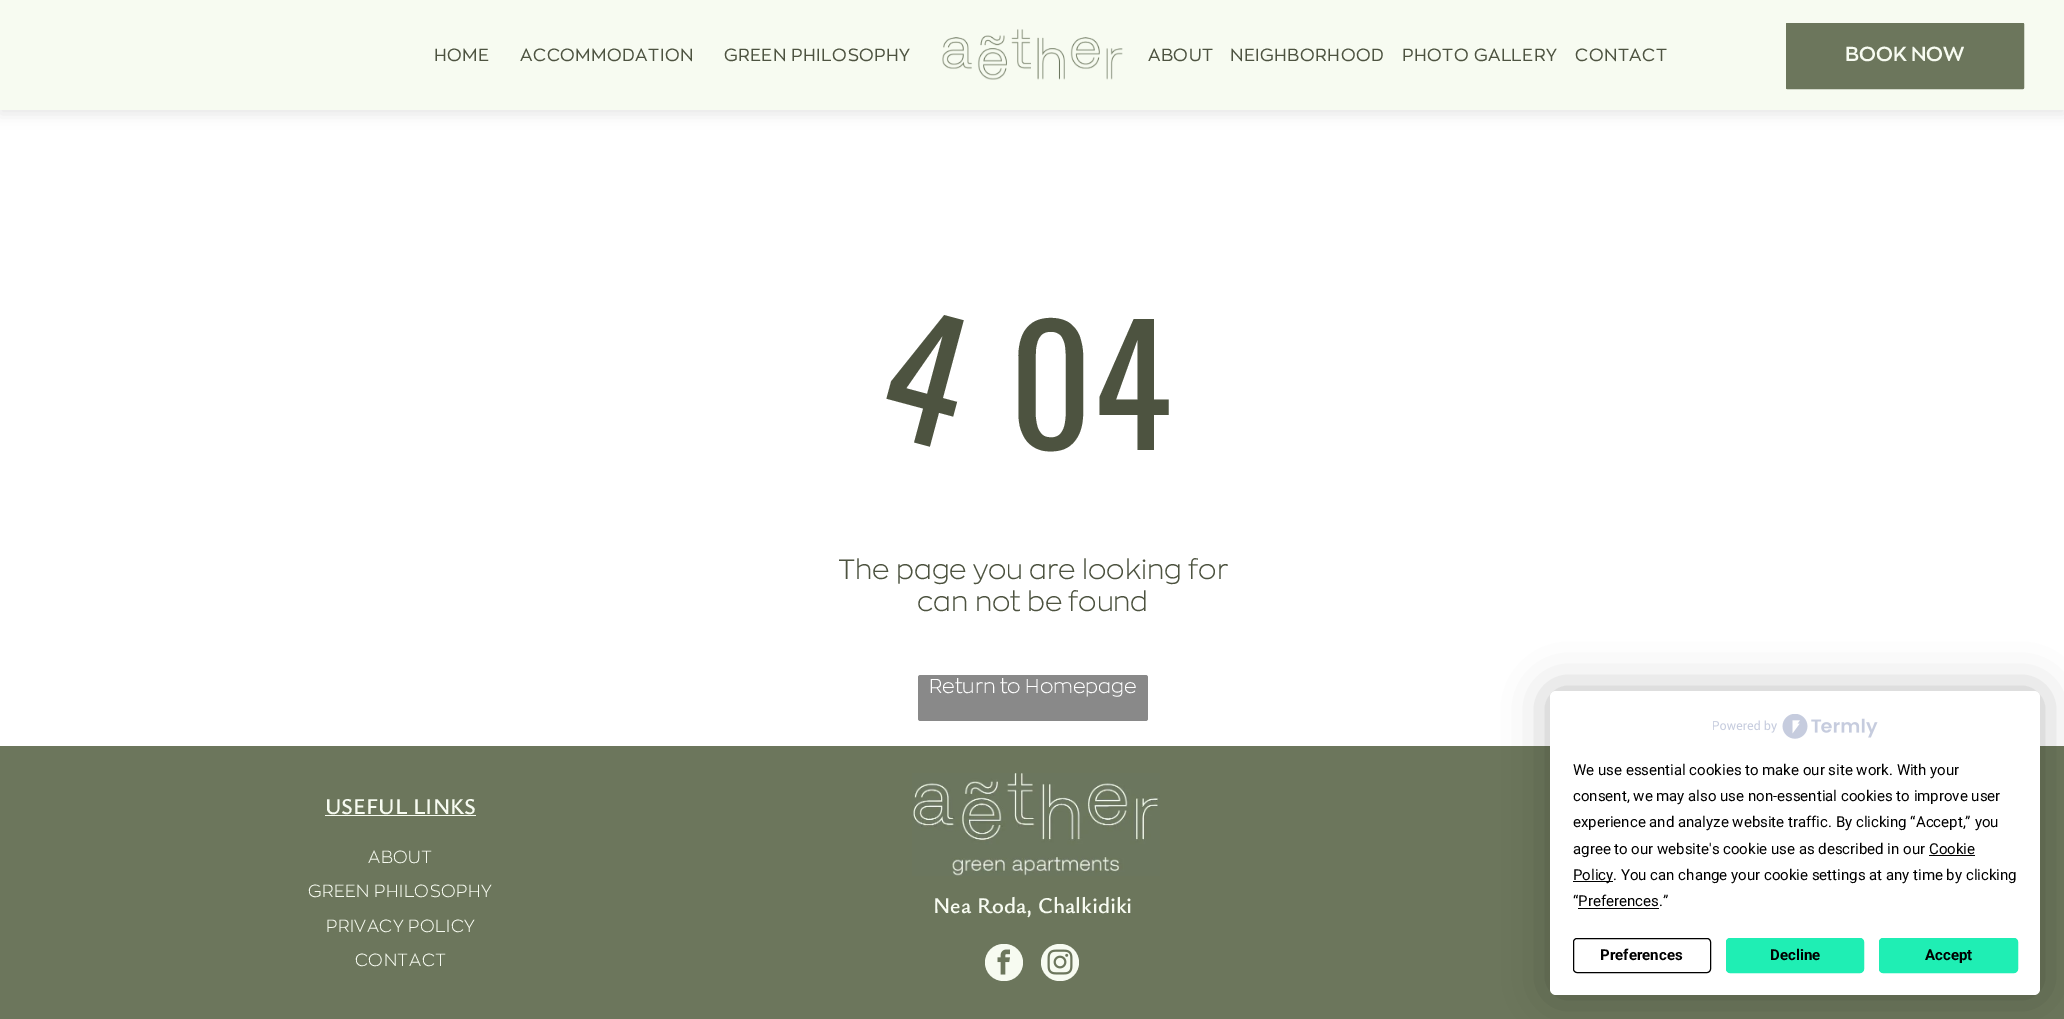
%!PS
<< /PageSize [2064 1019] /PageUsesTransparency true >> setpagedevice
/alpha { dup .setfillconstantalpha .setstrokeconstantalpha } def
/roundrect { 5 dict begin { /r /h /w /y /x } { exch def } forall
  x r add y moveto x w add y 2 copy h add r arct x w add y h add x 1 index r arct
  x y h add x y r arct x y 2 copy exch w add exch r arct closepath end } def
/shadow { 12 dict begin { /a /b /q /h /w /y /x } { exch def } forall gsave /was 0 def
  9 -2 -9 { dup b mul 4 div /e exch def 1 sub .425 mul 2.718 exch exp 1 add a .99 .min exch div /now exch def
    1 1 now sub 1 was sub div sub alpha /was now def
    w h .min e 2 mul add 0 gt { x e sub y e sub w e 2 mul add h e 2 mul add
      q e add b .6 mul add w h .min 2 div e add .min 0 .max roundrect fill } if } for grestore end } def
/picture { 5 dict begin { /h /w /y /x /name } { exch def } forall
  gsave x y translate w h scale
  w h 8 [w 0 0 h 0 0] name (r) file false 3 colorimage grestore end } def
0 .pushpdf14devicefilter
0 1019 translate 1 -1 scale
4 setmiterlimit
1 setgray
0 0 2064 1019 rectfill
0 setgray
0 4 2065 110 0 7 0.1 shadow
0.969 0.984 0.945 setrgbcolor
0 0 2064 110 rectfill
/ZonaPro-Regular [17.5 0 0 -17.5 0 0] selectfont
0.302 0.325 0.251 setrgbcolor
434 61 moveto 0.5 0 (ΗΟΜΕ) ashow
520 61 moveto 0.5 0 (ACCOMMODATION) ashow
724 61 moveto 0.5 0 (GREEN PHILOSOPHY) ashow
(img1.rgb) 942 29 181 51 picture
1148 61 moveto 0.5 0 (ABOUT) ashow
1230 61 moveto 0.5 0 (NEIGHBORHOOD) ashow
1402 61 moveto 0.5 0 (PHOTO GALLERY) ashow
1575 61 moveto 0.5 0 (CONTACT) ashow
0.424 0.463 0.361 setrgbcolor
1786.5 23.5 237 65 0.5 roundrect gsave fill grestore
stroke
/ZonaPro-SemiBold [20 0 0 -20 0 0] selectfont
0.969 0.984 0.945 setrgbcolor
1845 61 moveto (BOOK NOW) show
/Oswald-Regular [162 0 0 -162 0 0] selectfont
0.302 0.325 0.251 setrgbcolor
gsave 871 431 translate 15 rotate 0 0 moveto (4) show grestore
1009 450 moveto (04) show
/ZonaPro-Light [27.5 0 0 -27.5 0 0] selectfont
838 579 moveto (The page you are looking for) show
917 611 moveto (can not be found) show
0.537 setgray
918 675 230 46 2.5 roundrect fill
/ZonaPro-Light [20 0 0 -20 0 0] selectfont
1 setgray
929 693 moveto (Return to Homepage) show
0.424 0.463 0.361 setrgbcolor
0 746 2064 273 rectfill
/Ysabeau-SemiBold [22.5 0 0 -22.5 0 0] selectfont
0.969 0.984 0.945 setrgbcolor
325 814 moveto (USEFUL LINKS) show
325 815 151 1 rectfill
/ZonaPro-Light [17.5 0 0 -17.5 0 0] selectfont
368 863 moveto 0.5 0 (ABOUT) ashow
308 897 moveto 0.5 0 (GREEN PHILOSOPHY) ashow
326 932 moveto 0.5 0 (PRIVACY POLICY) ashow
355 966 moveto 0.5 0 (CONTACT) ashow
(img2.rgb) 912 773 248 103 picture
/Ysabeau-SemiBold [22.5 0 0 -22.5 0 0] selectfont
933 913 moveto (Nea Roda, Chalkidiki) show
985 944 38 37 18.5 roundrect fill
(img3.rgb) 997 949 13 26 picture
1041 944 38 37 18.5 roundrect fill
(img4.rgb) 1047 949 26 26 picture
0 setgray
1550 691 490 304 6 22 0.25 shadow
1 setgray
1550 691 490 304 6 roundrect fill
(img5.rgb) 1713 714 165 25 picture
/Roboto-Regular [15 0 0 -15 0 0] selectfont
0 setgray
1573 775 moveto (We use essential cookies to make our site work. With your) show
1573 801 moveto (consent, we may also use non-essential cookies to improve user) show
1573 827 moveto (experience and analyze website traffic. By clicking “Accept,” you) show
1573 854 moveto (agree to our website's cookie use as described in our Cookie) show
1573 881 40 1 rectfill
1573 880 moveto (Policy. You can change your cookie settings at any time by clicking) show
1929 855 46 1 rectfill
1573 906 moveto (“Preferences.”) show
1578 908 81 1 rectfill
1573.5 938.5 137 34 3.5 roundrect stroke
/Roboto-Bold [15 0 0 -15 0 0] selectfont
1600 960 moveto (Preferences) show
0.122 0.933 0.706 setrgbcolor
1726.5 938.5 137 34 3.5 roundrect gsave fill grestore
stroke
0 setgray
1770 960 moveto (Decline) show
0.122 0.933 0.706 setrgbcolor
1879.5 938.5 138 34 3.5 roundrect gsave fill grestore
stroke
0 setgray
1925 960 moveto (Accept) show
.poppdf14devicefilter showpage
